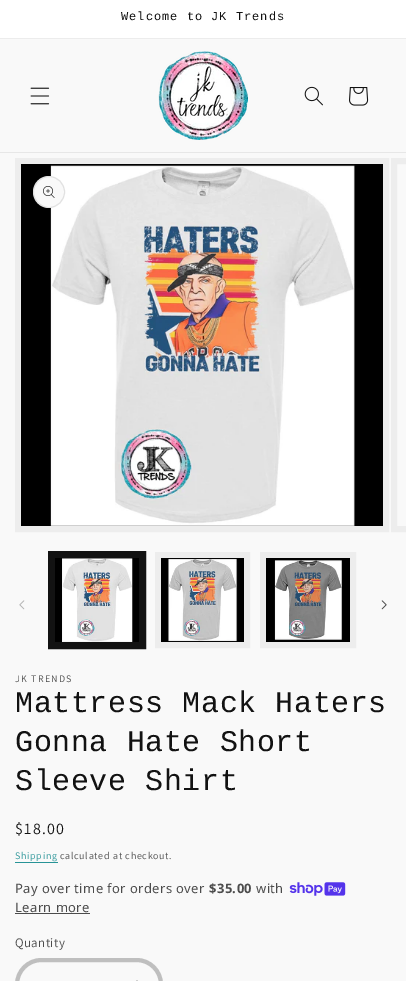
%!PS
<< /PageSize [406 981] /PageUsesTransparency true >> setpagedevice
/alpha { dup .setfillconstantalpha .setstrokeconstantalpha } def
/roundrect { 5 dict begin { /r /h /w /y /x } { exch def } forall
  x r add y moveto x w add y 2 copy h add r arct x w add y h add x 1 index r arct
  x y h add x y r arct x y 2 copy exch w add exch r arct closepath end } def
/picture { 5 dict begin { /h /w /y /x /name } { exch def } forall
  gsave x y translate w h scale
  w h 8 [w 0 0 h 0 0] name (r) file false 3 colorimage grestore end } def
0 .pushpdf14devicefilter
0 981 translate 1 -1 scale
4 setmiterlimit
1 setgray
0 0 406 981 rectfill
0.925 setgray
0 38 406 1 rectfill
/LiberationMono-Regular [12 0 0 -12 0 0] selectfont
0.071 setgray
121 20 moveto 1 0 (Welcome to JK Trends) ashow
0.976 setgray
0 39 406 113 rectfill
0.906 setgray
0 152 406 1 rectfill
(img1.rgb) 30 87 20 18 picture
(img2.rgb) 158 51 90 89 picture
(img3.rgb) 304 86 19 20 picture
(img4.rgb) 349 87 20 19 picture
0.976 setgray
0 153 406 828 rectfill
0.929 setgray
6 setlinewidth
18 161 368 368 rectstroke
(img5.rgb) 21 164 362 362 picture
0.976 setgray
newpath 49 192 16 0 360 arc closepath fill
0.1 alpha
0.071 setgray
1 setlinewidth
newpath 49 192 15.5 0 360 arc closepath stroke
1 alpha
(img6.rgb) 43 186 12 12 picture
0.929 setgray
6 setlinewidth
394 161 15 368 rectstroke
(img7.rgb) 19 600 6 10 picture
0.071 setgray
1 setlinewidth
48.5 551.5 97 97 rectstroke
6 setlinewidth
52 555 90 90 rectstroke
(img8.rgb) 55 558 84 84 picture
0.929 setgray
158 555 89 90 rectstroke
(img9.rgb) 161 558 83 84 picture
263 555 90 90 rectstroke
(img10.rgb) 266 558 84 84 picture
(img11.rgb) 381 600 6 10 picture
/Assistant-Regular [10 0 0 -10 0 0] selectfont
0.298 setgray
15 682 moveto 1.25 0 (JK TRENDS) ashow
/LiberationMono-Regular [30 0 0 -30 0 0] selectfont
0.071 setgray
15 712 moveto 0.6 0 (Mattress Mack Haters) ashow
15 751 moveto 0.6 0 (Gonna Hate Short) ashow
15 790 moveto 0.6 0 (Sleeve Shirt) ashow
/Assistant-Regular [16 0 0 -16 0 0] selectfont
15 834 moveto 1.25 0 ($18.00) ashow
/Assistant-Regular [10 0 0 -10 0 0] selectfont
0.157 0.58 0.592 setrgbcolor
15 859 moveto 0.7 0 (Shipping) ashow
15 862 43 1 rectfill
0.298 setgray
60 859 moveto 0.7 0 (calculated at checkout.) ashow
/NotoSans-Regular [13 0 0 -13 0 0] selectfont
15 893 moveto 0.4 0 (Pay over time for orders over) ashow
/NotoSans-Bold [13 0 0 -13 0 0] selectfont
209 893 moveto 0.4 0 ($35.00) ashow
/NotoSans-Regular [13 0 0 -13 0 0] selectfont
256 893 moveto 0.4 0 (with) ashow
(img12.rgb) 289 882 57 14 picture
15 912 moveto 0.4 0 (Learn more) ashow
15 913 75 1 rectfill
/Assistant-Regular [13 0 0 -13 0 0] selectfont
15 947 moveto 0.4 0 (Quantity) ashow
0.812 setgray
136 980 2 1 rectfill
0.749 setgray
4 setlinewidth
17 960 144 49 24.5 roundrect stroke
.poppdf14devicefilter showpage
